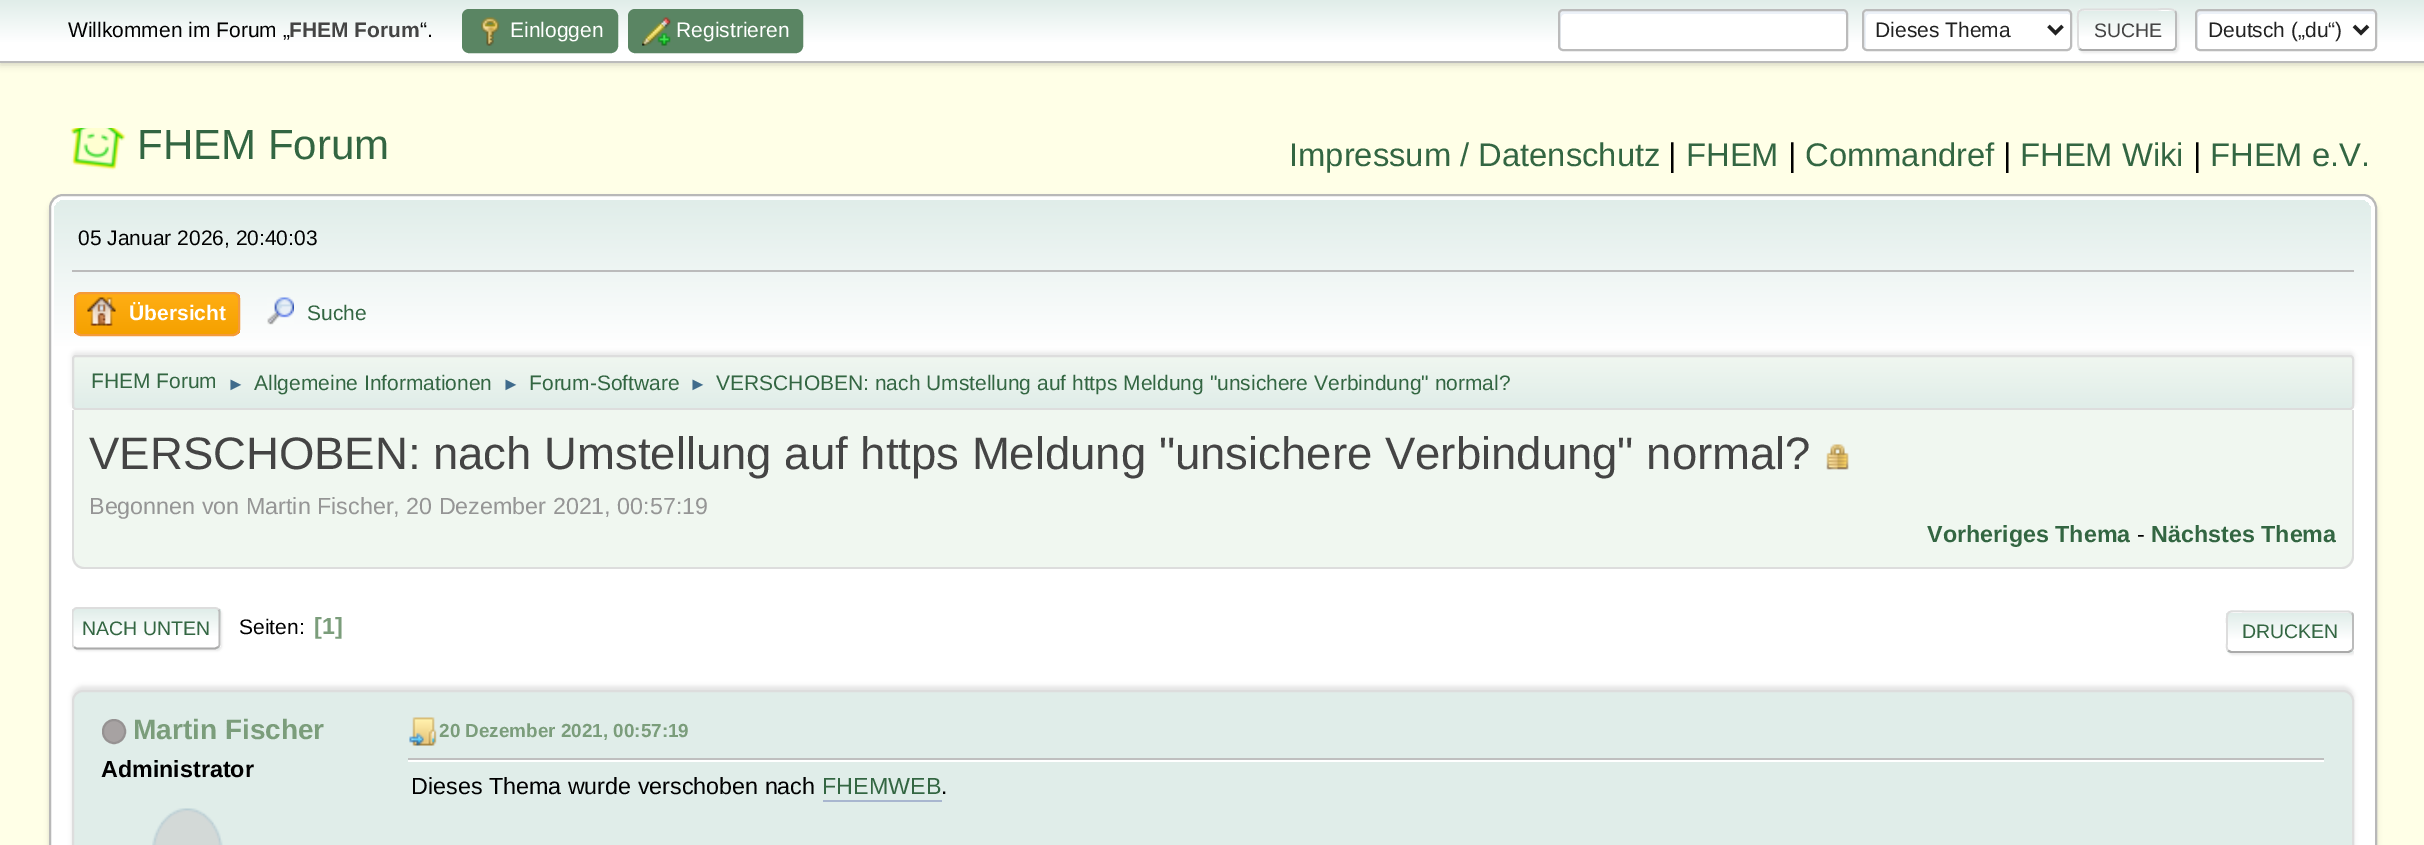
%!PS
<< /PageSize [2424 845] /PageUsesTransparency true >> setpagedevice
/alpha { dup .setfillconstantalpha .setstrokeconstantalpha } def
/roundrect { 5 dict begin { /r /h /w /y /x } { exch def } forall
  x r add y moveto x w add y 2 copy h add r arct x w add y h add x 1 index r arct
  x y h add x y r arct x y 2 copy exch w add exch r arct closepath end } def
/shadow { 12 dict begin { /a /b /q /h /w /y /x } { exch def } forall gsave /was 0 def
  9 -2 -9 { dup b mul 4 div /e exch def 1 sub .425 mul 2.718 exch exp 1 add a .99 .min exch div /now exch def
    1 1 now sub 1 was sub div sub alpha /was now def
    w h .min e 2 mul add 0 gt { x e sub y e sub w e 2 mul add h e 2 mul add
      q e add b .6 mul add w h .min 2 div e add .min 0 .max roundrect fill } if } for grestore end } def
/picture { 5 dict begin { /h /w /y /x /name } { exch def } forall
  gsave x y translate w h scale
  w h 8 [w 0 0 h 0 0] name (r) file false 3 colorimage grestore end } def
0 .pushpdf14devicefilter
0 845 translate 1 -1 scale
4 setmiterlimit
1 1 0.906 setrgbcolor
0 0 2424 845 rectfill
0 setgray
0 2 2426 63 0 3.5 0.16 shadow
gsave newpath 0 0 moveto 2424 0 lineto 2424 61 lineto 0 61 lineto closepath clip newpath
<< /ShadingType 2 /ColorSpace /DeviceRGB /Coords [1213 0 1213 61] /Extend [true true] /Function << /FunctionType 3 /Domain [0 1] /Functions [<< /FunctionType 2 /Domain [0 1] /C0 [0.878 0.929 0.914] /C1 [1 1 1] /N 1 >> << /FunctionType 2 /Domain [0 1] /C0 [1 1 1] /C1 [1 1 1] /N 1 >>] /Bounds [0.7] /Encode [0 1 0 1] >> >> shfill grestore
0.733 setgray
0 61 2424 2 rectfill
/LiberationSans-Regular [21 0 0 -21 0 0] selectfont
0 setgray
68 37 moveto (Willkommen im Forum „) show
/LiberationSans-Bold [21 0 0 -21 0 0] selectfont
0.267 setgray
289 37 moveto (FHEM Forum) show
/LiberationSans-Regular [21 0 0 -21 0 0] selectfont
0 setgray
420 37 moveto (“.) show
0.353 0.522 0.388 setrgbcolor
463 10 154 42 6 roundrect gsave fill grestore
2 setlinewidth
stroke
(img1.rgb) 481 17 19 29 picture
1 setgray
510 37 moveto (Einloggen) show
0.353 0.522 0.388 setrgbcolor
629 10 173 42 6 roundrect gsave fill grestore
stroke
(img2.rgb) 642 17 29 29 picture
1 setgray
676 37 moveto (Registrieren) show
1558 9 290 42 5 roundrect fill
0.925 0.945 0.973 setrgbcolor
newpath 1564 14 moveto 1844 14 lineto 1846 15 lineto 1846 13 1844 11 1842 11 curveto 1563 11 lineto 1561 11 1559 13 1559 15 curveto 1559 45 lineto 1559 46 1560 48 1561 48 curveto 1561 18 lineto 1561 16 1563 14 1564 14 curveto closepath fill
0.733 setgray
1559 10 288 40 4 roundrect stroke
1 setgray
1862 9 210 42 5 roundrect fill
0.925 0.945 0.973 setrgbcolor
newpath 1869 14 moveto 2068 14 lineto 2070 15 lineto 2070 13 2068 11 2066 11 curveto 1868 11 lineto 1866 11 1864 13 1864 15 curveto 1864 45 lineto 1864 46 1865 48 1866 48 curveto 1866 18 lineto 1866 16 1867 14 1869 14 curveto closepath fill
0.733 setgray
1863 10 208 40 4 roundrect stroke
0.133 setgray
3.5 setlinewidth
newpath 2048.5 26 moveto 2055.5 33 lineto 2062.5 26 lineto stroke
1875 37 moveto (Dieses Thema) show
0.867 setgray
2079 11 100 42 5 1 0.57 shadow
gsave
2077 9 100 42 5 roundrect clip newpath
gsave newpath 2077 9 moveto 2177 9 lineto 2177 11 lineto 2077 11 lineto closepath clip newpath
<< /ShadingType 2 /ColorSpace /DeviceRGB /Coords [2127 -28 2127 11] /Extend [true true] /Function << /FunctionType 3 /Domain [0 1] /Functions [<< /FunctionType 2 /Domain [0 1] /C0 [0.878 0.929 0.914] /C1 [1 1 1] /N 1 >> << /FunctionType 2 /Domain [0 1] /C0 [1 1 1] /C1 [1 1 1] /N 1 >>] /Bounds [0.7] /Encode [0 1 0 1] >> >> shfill grestore
gsave newpath 2077 11 moveto 2177 11 lineto 2177 49 lineto 2077 49 lineto closepath clip newpath
<< /ShadingType 2 /ColorSpace /DeviceRGB /Coords [2127 10 2127 49] /Extend [true true] /Function << /FunctionType 3 /Domain [0 1] /Functions [<< /FunctionType 2 /Domain [0 1] /C0 [0.878 0.929 0.914] /C1 [1 1 1] /N 1 >> << /FunctionType 2 /Domain [0 1] /C0 [1 1 1] /C1 [1 1 1] /N 1 >>] /Bounds [0.7] /Encode [0 1 0 1] >> >> shfill grestore
gsave newpath 2077 49 moveto 2177 49 lineto 2177 51 lineto 2077 51 lineto closepath clip newpath
<< /ShadingType 2 /ColorSpace /DeviceRGB /Coords [2127 49 2127 88] /Extend [true true] /Function << /FunctionType 3 /Domain [0 1] /Functions [<< /FunctionType 2 /Domain [0 1] /C0 [0.878 0.929 0.914] /C1 [1 1 1] /N 1 >> << /FunctionType 2 /Domain [0 1] /C0 [1 1 1] /C1 [1 1 1] /N 1 >>] /Bounds [0.7] /Encode [0 1 0 1] >> >> shfill grestore
grestore
0.733 setgray
1.8 setlinewidth
newpath 2175 11 moveto 2175.5 11.5 2176 13 2176 14 curveto 2176 45.5 lineto 2176 46.5 2175.5 48 2175 48.5 curveto stroke
0.667 setgray
newpath 2175 48.5 moveto 2174 49.5 2173 50 2172 50 curveto 2082.5 50 lineto 2081.5 50 2080 49.5 2079.5 48.5 curveto stroke
0.867 setgray
newpath 2079.5 48.5 moveto 2077.5 46.5 2078 42.5 2078 40 curveto 2078 30 lineto 2078 7 2074.5 9.5 2097.5 9.5 curveto 2157 9.5 lineto 2157 9.5 2171.5 7.5 2175 11 curveto stroke
/LiberationSans-Regular [19.5 0 0 -19.5 0 0] selectfont
0.267 setgray
2094 37 moveto (SUCHE) show
1 setgray
2195 9 182 42 5 roundrect fill
0.925 0.945 0.973 setrgbcolor
newpath 2202 14 moveto 2373 14 lineto 2374 14 2375 14 2375 15 curveto 2375 13 2373 11 2371 11 curveto 2200 11 lineto 2198 11 2196 13 2196 15 curveto 2196 45 lineto 2196 46 2197 48 2198 48 curveto 2198 18 lineto 2198 16 2200 14 2202 14 curveto closepath fill
0.733 setgray
2 setlinewidth
2196 10 180 40 4 roundrect stroke
0.133 setgray
3.5 setlinewidth
newpath 2354 26 moveto 2361 33 lineto 2368 26 lineto stroke
/LiberationSans-Regular [21 0 0 -21 0 0] selectfont
2208 37 moveto (Deutsch \(„du“\)) show
(img3.rgb) 70 128 56 42 picture
/LiberationSans-Regular [42 0 0 -42 0 0] selectfont
0.2 0.4 0.259 setrgbcolor
137 159 moveto (FHEM Forum) show
/LiberationSans-Regular [32.75 0 0 -32.75 0 0] selectfont
1289 166 moveto (Impressum / Datenschutz) show
0 setgray
1668 166 moveto (|) show
0.2 0.4 0.259 setrgbcolor
1686 166 moveto (FHEM) show
0 setgray
1788 166 moveto (|) show
0.2 0.4 0.259 setrgbcolor
1805 166 moveto (Commandref) show
0 setgray
2003 166 moveto (|) show
0.2 0.4 0.259 setrgbcolor
2020 166 moveto (FHEM Wiki) show
0 setgray
2193 166 moveto (|) show
0.2 0.4 0.259 setrgbcolor
2210 166 moveto (FHEM e.V.) show
0 setgray
49 198 2328 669 14 2.5 0.14 shadow
1 setgray
50 195 2326 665 13 roundrect gsave fill grestore
0.722 setgray
2 setlinewidth
stroke
gsave newpath 65 200 moveto 2360 200 lineto 2366 200 2371 205 2371 211 curveto 2371 413 lineto 54 413 lineto 54 211 lineto 54 205 59 200 65 200 curveto closepath clip newpath
<< /ShadingType 2 /ColorSpace /DeviceRGB /Coords [1213 199 1213 413] /Extend [true true] /Function << /FunctionType 3 /Domain [0 1] /Functions [<< /FunctionType 2 /Domain [0 1] /C0 [0.878 0.929 0.914] /C1 [1 1 1] /N 1 >> << /FunctionType 2 /Domain [0 1] /C0 [1 1 1] /C1 [1 1 1] /N 1 >>] /Bounds [0.7] /Encode [0 1 0 1] >> >> shfill grestore
0.733 setgray
72 270 2282 2 rectfill
/LiberationSans-Regular [21 0 0 -21 0 0] selectfont
0 setgray
78 245 moveto (05 Januar 2026, 20:40:03) show
gsave
74 292 166 44 7 roundrect clip newpath
gsave newpath 74 294 moveto 240 294 lineto 240 334 lineto 74 334 lineto closepath clip newpath
<< /ShadingType 2 /ColorSpace /DeviceRGB /Coords [157 294 157 334] /Extend [true true] /Function << /FunctionType 2 /Domain [0 1] /C0 [1 0.682 0.078] /C1 [0.961 0.631 0] /N 1 >> >> shfill grestore
grestore
0.957 0.604 0.227 setrgbcolor
75 293 164 42 6 roundrect stroke
(img4.rgb) 87 297 29 29 picture
/LiberationSans-Bold [21 0 0 -21 0 0] selectfont
1 setgray
129 320 moveto (Übersicht) show
(img5.rgb) 267 297 27 28 picture
/LiberationSans-Regular [21 0 0 -21 0 0] selectfont
0.2 0.4 0.259 setrgbcolor
307 320 moveto (Suche) show
0 setgray
72 352 2282 54 4 2 0.08 shadow
gsave
72 355 2282 55 4 roundrect clip newpath
gsave newpath 72 357 moveto 2354 357 lineto 2354 408 lineto 72 408 lineto closepath clip newpath
<< /ShadingType 2 /ColorSpace /DeviceRGB /Coords [1213 357 1213 408] /Extend [true true] /Function << /FunctionType 2 /Domain [0 1] /C0 [0.941 0.969 0.941] /C1 [0.878 0.929 0.914] /N 1 >> >> shfill grestore
grestore
0.867 setgray
73 356 2280 53 3 roundrect stroke
0.2 0.4 0.259 setrgbcolor
91 388 moveto (FHEM Forum) show
/LiberationSans-Regular [18 0 0 -18 0 0] selectfont
0.247 0.42 0.549 setrgbcolor
227 390 moveto (►) show
/LiberationSans-Regular [21 0 0 -21 0 0] selectfont
0.2 0.4 0.259 setrgbcolor
254 390 moveto (Allgemeine Informationen) show
/LiberationSans-Regular [18 0 0 -18 0 0] selectfont
0.247 0.42 0.549 setrgbcolor
502 390 moveto (►) show
/LiberationSans-Regular [21 0 0 -21 0 0] selectfont
0.2 0.4 0.259 setrgbcolor
529 390 moveto (Forum-Software) show
/LiberationSans-Regular [18 0 0 -18 0 0] selectfont
0.247 0.42 0.549 setrgbcolor
689 390 moveto (►) show
/LiberationSans-Regular [21 0 0 -21 0 0] selectfont
0.2 0.4 0.259 setrgbcolor
716 390 moveto (VERSCHOBEN: nach Umstellung auf https Meldung "unsichere Verbindung" normal?) show
0.941 0.969 0.941 setrgbcolor
newpath 72 410 moveto 2354 410 lineto 2354 557 lineto 2354 563.5 2348.5 569 2342 569 curveto 84 569 lineto 77.5 569 72 563.5 72 557 curveto closepath fill
0.867 setgray
newpath 72 410 moveto 2354 410 lineto 2354 556 lineto 2354 563 2348 569 2342 569 curveto 84 569 lineto 77 569 72 563 72 556 curveto closepath 74 410 moveto 2352 410 lineto 2352 556 lineto 2352 562 2347 567 2342 567 curveto 84 567 lineto 78 567 74 562 74 556 curveto closepath eofill
/LiberationSans-Regular [45.5 0 0 -45.5 0 0] selectfont
0.267 setgray
89 469 moveto (VERSCHOBEN: nach Umstellung auf https Meldung "unsichere Verbindung" normal?) show
(img6.rgb) 1826 444 23 26 picture
/LiberationSans-Regular [23.3 0 0 -23.3 0 0] selectfont
0.584 setgray
89 514 moveto (Begonnen von Martin Fischer, 20 Dezember 2021, 00:57:19) show
/LiberationSans-Bold [23.3 0 0 -23.3 0 0] selectfont
0.2 0.4 0.259 setrgbcolor
1927 542 moveto (Vorheriges Thema) show
/LiberationSans-Regular [23.3 0 0 -23.3 0 0] selectfont
0 setgray
2137 542 moveto (-) show
/LiberationSans-Bold [23.3 0 0 -23.3 0 0] selectfont
0.2 0.4 0.259 setrgbcolor
2151 542 moveto (Nächstes Thema) show
0.867 setgray
74 609 148 42 5 1 0.57 shadow
1 setgray
72 607 149 42 5 roundrect fill
gsave
72 607 149 42 5 roundrect clip newpath
gsave newpath 72 609 moveto 221 609 lineto 221 648 lineto 72 648 lineto closepath clip newpath
<< /ShadingType 2 /ColorSpace /DeviceRGB /Coords [146 609 146 648] /Extend [true true] /Function << /FunctionType 3 /Domain [0 1] /Functions [<< /FunctionType 2 /Domain [0 1] /C0 [0.878 0.929 0.914] /C1 [1 1 1] /N 1 >> << /FunctionType 2 /Domain [0 1] /C0 [1 1 1] /C1 [1 1 1] /N 1 >>] /Bounds [0.7] /Encode [0 1 0 1] >> >> shfill grestore
gsave newpath 72 648 moveto 221 648 lineto 221 649 lineto 72 649 lineto closepath clip newpath
<< /ShadingType 2 /ColorSpace /DeviceRGB /Coords [146 648 146 686] /Extend [true true] /Function << /FunctionType 3 /Domain [0 1] /Functions [<< /FunctionType 2 /Domain [0 1] /C0 [0.878 0.929 0.914] /C1 [1 1 1] /N 1 >> << /FunctionType 2 /Domain [0 1] /C0 [1 1 1] /C1 [1 1 1] /N 1 >>] /Bounds [0.7] /Encode [0 1 0 1] >> >> shfill grestore
grestore
0.733 setgray
1.8 setlinewidth
newpath 218.5 609.5 moveto 219 610 219.5 611.5 219.5 612.5 curveto 219.5 644 lineto 219.5 645 219 646.5 218.5 647 curveto stroke
0.667 setgray
newpath 218.5 647 moveto 215 648.5 lineto 76.5 648.5 lineto 74 647 lineto stroke
gsave
72 595 2282 74 rectclip
0.867 setgray
newpath 74 647 moveto 73 646.5 72.5 645 72.5 644 curveto 72.5 612.5 lineto 72.5 611.5 73 610 74 609.5 curveto 74.5 608.5 76 608 77 608 curveto 215 608 lineto 216.5 608 217.5 608.5 218.5 609.5 curveto stroke
grestore
/LiberationSans-Regular [19.5 0 0 -19.5 0 0] selectfont
0.2 0.4 0.259 setrgbcolor
82 635 moveto (NACH UNTEN) show
/LiberationSans-Regular [21 0 0 -21 0 0] selectfont
0 setgray
239 634 moveto (Seiten:) show
/LiberationSans-Bold [23.3 0 0 -23.3 0 0] selectfont
0.482 0.616 0.482 setrgbcolor
314 634 moveto ([1]) show
gsave
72 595 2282 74 rectclip
0.867 setgray
2228 613 128 42 5 1 0.57 shadow
grestore
1 setgray
2226 611 128 42 5 roundrect fill
gsave
2226 611 128 42 5 roundrect clip newpath
gsave newpath 2226 613 moveto 2354 613 lineto 2354 651 lineto 2226 651 lineto closepath clip newpath
<< /ShadingType 2 /ColorSpace /DeviceRGB /Coords [2290 613 2290 651] /Extend [true true] /Function << /FunctionType 3 /Domain [0 1] /Functions [<< /FunctionType 2 /Domain [0 1] /C0 [0.878 0.929 0.914] /C1 [1 1 1] /N 1 >> << /FunctionType 2 /Domain [0 1] /C0 [1 1 1] /C1 [1 1 1] /N 1 >>] /Bounds [0.7] /Encode [0 1 0 1] >> >> shfill grestore
gsave newpath 2226 651 moveto 2354 651 lineto 2354 653 lineto 2226 653 lineto closepath clip newpath
<< /ShadingType 2 /ColorSpace /DeviceRGB /Coords [2290 651 2290 690] /Extend [true true] /Function << /FunctionType 3 /Domain [0 1] /Functions [<< /FunctionType 2 /Domain [0 1] /C0 [0.878 0.929 0.914] /C1 [1 1 1] /N 1 >> << /FunctionType 2 /Domain [0 1] /C0 [1 1 1] /C1 [1 1 1] /N 1 >>] /Bounds [0.7] /Encode [0 1 0 1] >> >> shfill grestore
grestore
0.733 setgray
newpath 2351.5 613 moveto 2352.5 613.5 2353 615 2353 616 curveto 2353 647.5 lineto 2353 648.5 2352.5 650 2351.5 650.5 curveto stroke
0.667 setgray
newpath 2351.5 650.5 moveto 2348.5 652 lineto 2231 652 lineto 2228 650.5 lineto stroke
0.867 setgray
newpath 2228 650.5 moveto 2226 648.5 2227 644.5 2227 642 curveto 2227 632 lineto 2227 607 2223.5 611.5 2251 611.5 curveto 2348.5 611.5 lineto 2351.5 613 lineto stroke
/LiberationSans-Regular [19.5 0 0 -19.5 0 0] selectfont
0.2 0.4 0.259 setrgbcolor
2242 638 moveto (DRUCKEN) show
0 setgray
72 686 2282 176 11 2 0.1 shadow
0.878 0.929 0.914 setrgbcolor
73 691 2280 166 10 roundrect gsave fill grestore
0.867 setgray
2 setlinewidth
stroke
0.655 0.635 0.635 setrgbcolor
103 720 22 23 11 roundrect gsave fill grestore
0.588 0.573 0.573 setrgbcolor
stroke
/LiberationSans-Bold [28 0 0 -28 0 0] selectfont
0.482 0.616 0.482 setrgbcolor
133 739 moveto (Martin Fischer) show
/LiberationSans-Bold [23.3 0 0 -23.3 0 0] selectfont
0 setgray
101 777 moveto (Administrator) show
(img7.rgb) 152 808 71 37 picture
(img8.rgb) 409 717 28 29 picture
/LiberationSans-Bold [18.9 0 0 -18.9 0 0] selectfont
0.482 0.616 0.482 setrgbcolor
439 737 moveto (20 Dezember 2021, 00:57:19) show
1 setgray
408 760 1916 2 rectfill
0.749 setgray
408 758 1916 2 rectfill
/LiberationSans-Regular [23.3 0 0 -23.3 0 0] selectfont
0 setgray
411 794 moveto (Dieses Thema wurde verschoben nach) show
0.2 0.4 0.259 setrgbcolor
822 794 moveto (FHEMWEB) show
0.659 0.714 0.812 setrgbcolor
823 800 119 2 rectfill
0 setgray
941 794 moveto (.) show
.poppdf14devicefilter showpage
